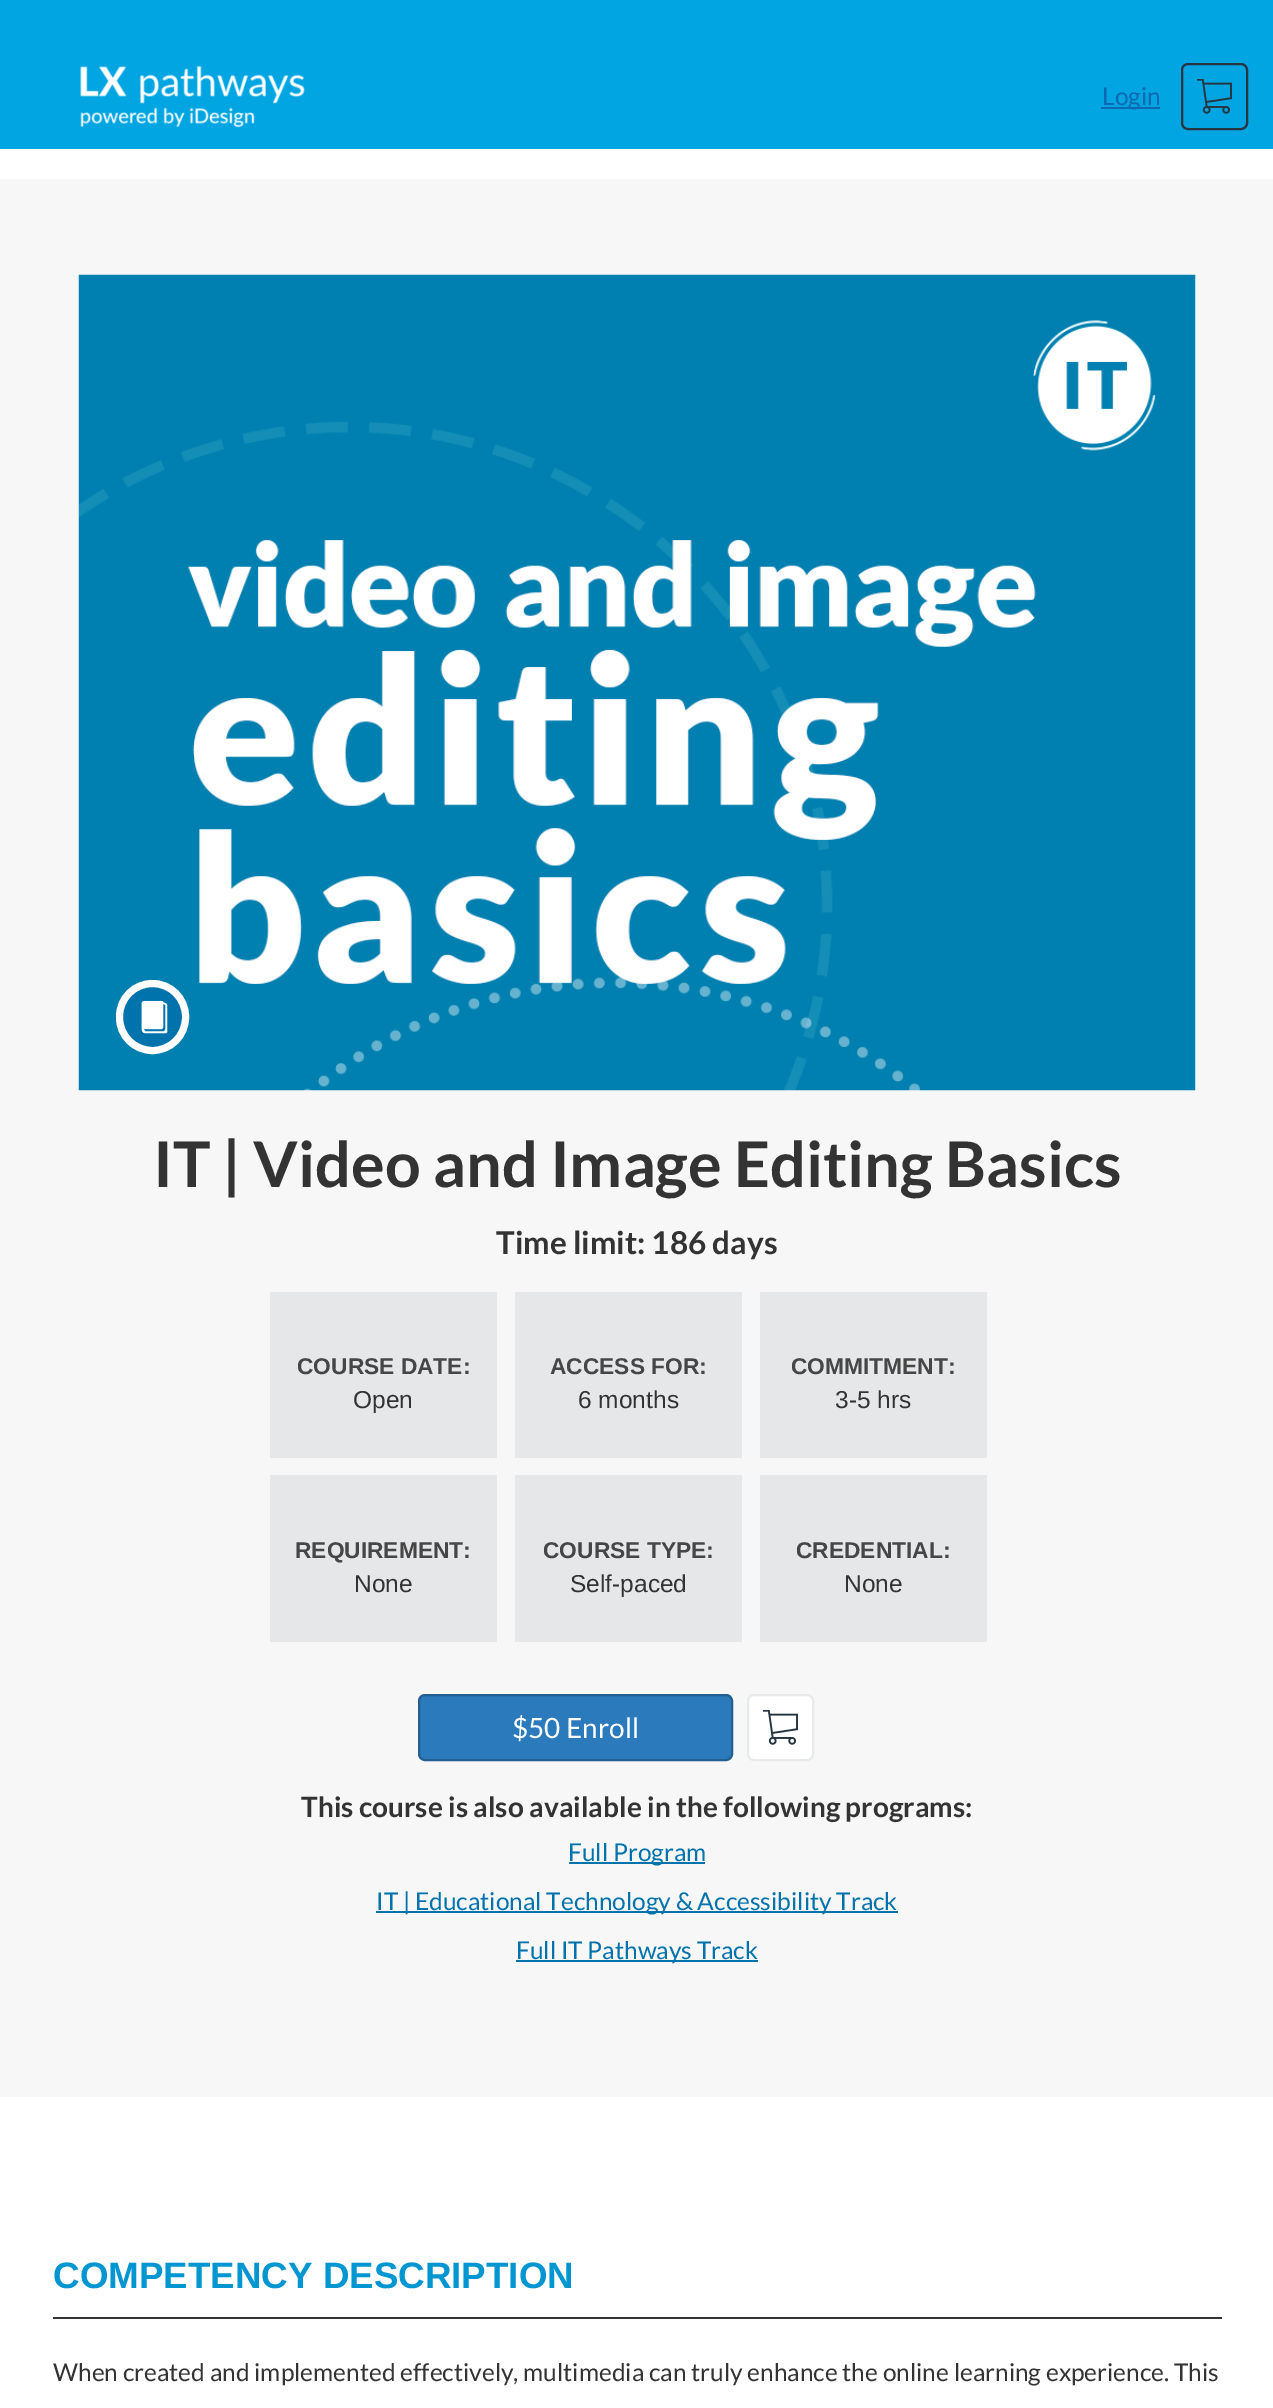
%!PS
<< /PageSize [1273 2408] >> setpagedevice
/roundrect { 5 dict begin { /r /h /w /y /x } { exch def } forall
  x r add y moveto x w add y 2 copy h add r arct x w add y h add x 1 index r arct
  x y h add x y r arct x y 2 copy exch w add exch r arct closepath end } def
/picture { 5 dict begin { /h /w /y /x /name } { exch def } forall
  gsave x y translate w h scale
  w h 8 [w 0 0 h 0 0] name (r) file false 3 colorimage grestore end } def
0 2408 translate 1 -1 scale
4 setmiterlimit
1 setgray
0 0 1273 2408 rectfill
0 0.647 0.882 setrgbcolor
0 0 1273 149 rectfill
(img1.rgb) 80 65 225 63 picture
0.055 0.408 0.702 setrgbcolor
1101 107 59 2 rectfill
/Lato-Regular [24.5 0 0 -24.5 0 0] selectfont
1102 105 moveto (Login) show
0.153 0.208 0.251 setrgbcolor
2 setlinewidth
1182 64 65 65 6 roundrect stroke
(img2.rgb) 1197 79 35 35 picture
0.969 setgray
0 179 1273 1918 rectfill
(img3.rgb) 78 274 1118 817 picture
0 0.451 0.675 setrgbcolor
119.5 983.5 66 67 33 roundrect gsave fill grestore
1 setgray
7 setlinewidth
stroke
(img4.rgb) 141 1000 27 34 picture
/Lato-Bold [63 0 0 -63 0 0] selectfont
0.2 setgray
153 1187 moveto (IT | Video and Image Editing Basics) show
/Lato-Bold [31.5 0 0 -31.5 0 0] selectfont
496 1254 moveto (Time limit: 186 days) show
0.902 0.906 0.91 setrgbcolor
270 1292 227 166 rectfill
/LiberationSans-Bold [22.75 0 0 -22.75 0 0] selectfont
0.275 setgray
297 1374 moveto (COURSE DATE:) show
/LiberationSans-Regular [24.5 0 0 -24.5 0 0] selectfont
0.2 setgray
353 1408 moveto (Open) show
0.902 0.906 0.91 setrgbcolor
515 1292 227 166 rectfill
/LiberationSans-Bold [22.75 0 0 -22.75 0 0] selectfont
0.275 setgray
550 1374 moveto (ACCESS FOR:) show
/LiberationSans-Regular [24.5 0 0 -24.5 0 0] selectfont
0.2 setgray
578 1408 moveto (6 months) show
0.902 0.906 0.91 setrgbcolor
760 1292 227 166 rectfill
/LiberationSans-Bold [22.75 0 0 -22.75 0 0] selectfont
0.275 setgray
791 1374 moveto (COMMITMENT:) show
/LiberationSans-Regular [24.5 0 0 -24.5 0 0] selectfont
0.2 setgray
835 1408 moveto (3-5 hrs) show
0.902 0.906 0.91 setrgbcolor
270 1475 227 167 rectfill
/LiberationSans-Bold [22.75 0 0 -22.75 0 0] selectfont
0.275 setgray
295 1558 moveto (REQUIREMENT:) show
/LiberationSans-Regular [24.5 0 0 -24.5 0 0] selectfont
0.2 setgray
354 1592 moveto (None) show
0.902 0.906 0.91 setrgbcolor
515 1475 227 167 rectfill
/LiberationSans-Bold [22.75 0 0 -22.75 0 0] selectfont
0.275 setgray
543 1558 moveto (COURSE TYPE:) show
/LiberationSans-Regular [24.5 0 0 -24.5 0 0] selectfont
0.2 setgray
570 1592 moveto (Self-paced) show
0.902 0.906 0.91 setrgbcolor
760 1475 227 167 rectfill
/LiberationSans-Bold [22.75 0 0 -22.75 0 0] selectfont
0.275 setgray
796 1558 moveto (CREDENTIAL:) show
/LiberationSans-Regular [24.5 0 0 -24.5 0 0] selectfont
0.2 setgray
844 1592 moveto (None) show
0.169 0.478 0.737 setrgbcolor
419 1695 313 65 6 roundrect gsave fill grestore
0.133 0.373 0.573 setrgbcolor
2 setlinewidth
stroke
/Lato-Regular [28 0 0 -28 0 0] selectfont
1 setgray
512 1738 moveto ($50 Enroll) show
748 1695 65 65 6 roundrect gsave fill grestore
0.91 0.918 0.925 setrgbcolor
stroke
(img5.rgb) 763 1710 35 35 picture
/Lato-Bold [28 0 0 -28 0 0] selectfont
0.2 setgray
301 1817 moveto (This course is also available in the following programs:) show
0 0.451 0.675 setrgbcolor
569 1862 136 2 rectfill
/Lato-Regular [24.5 0 0 -24.5 0 0] selectfont
568 1861 moveto (Full Program) show
376 1911 522 2 rectfill
376 1910 moveto (IT | Educational Technology & Accessibility Track) show
516 1960 242 2 rectfill
516 1959 moveto (Full IT Pathways Track) show
0.2 setgray
53 2317 1169 2 rectfill
/LiberationSans-Bold [36.75 0 0 -36.75 0 0] selectfont
0 0.588 0.824 setrgbcolor
53 2288 moveto (COMPETENCY DESCRIPTION) show
/Lato-Regular [24.5 0 0 -24.5 0 0] selectfont
0.2 setgray
53 2381 moveto (When created and implemented effectively, multimedia can truly enhance the online learning experience. This) show
showpage
